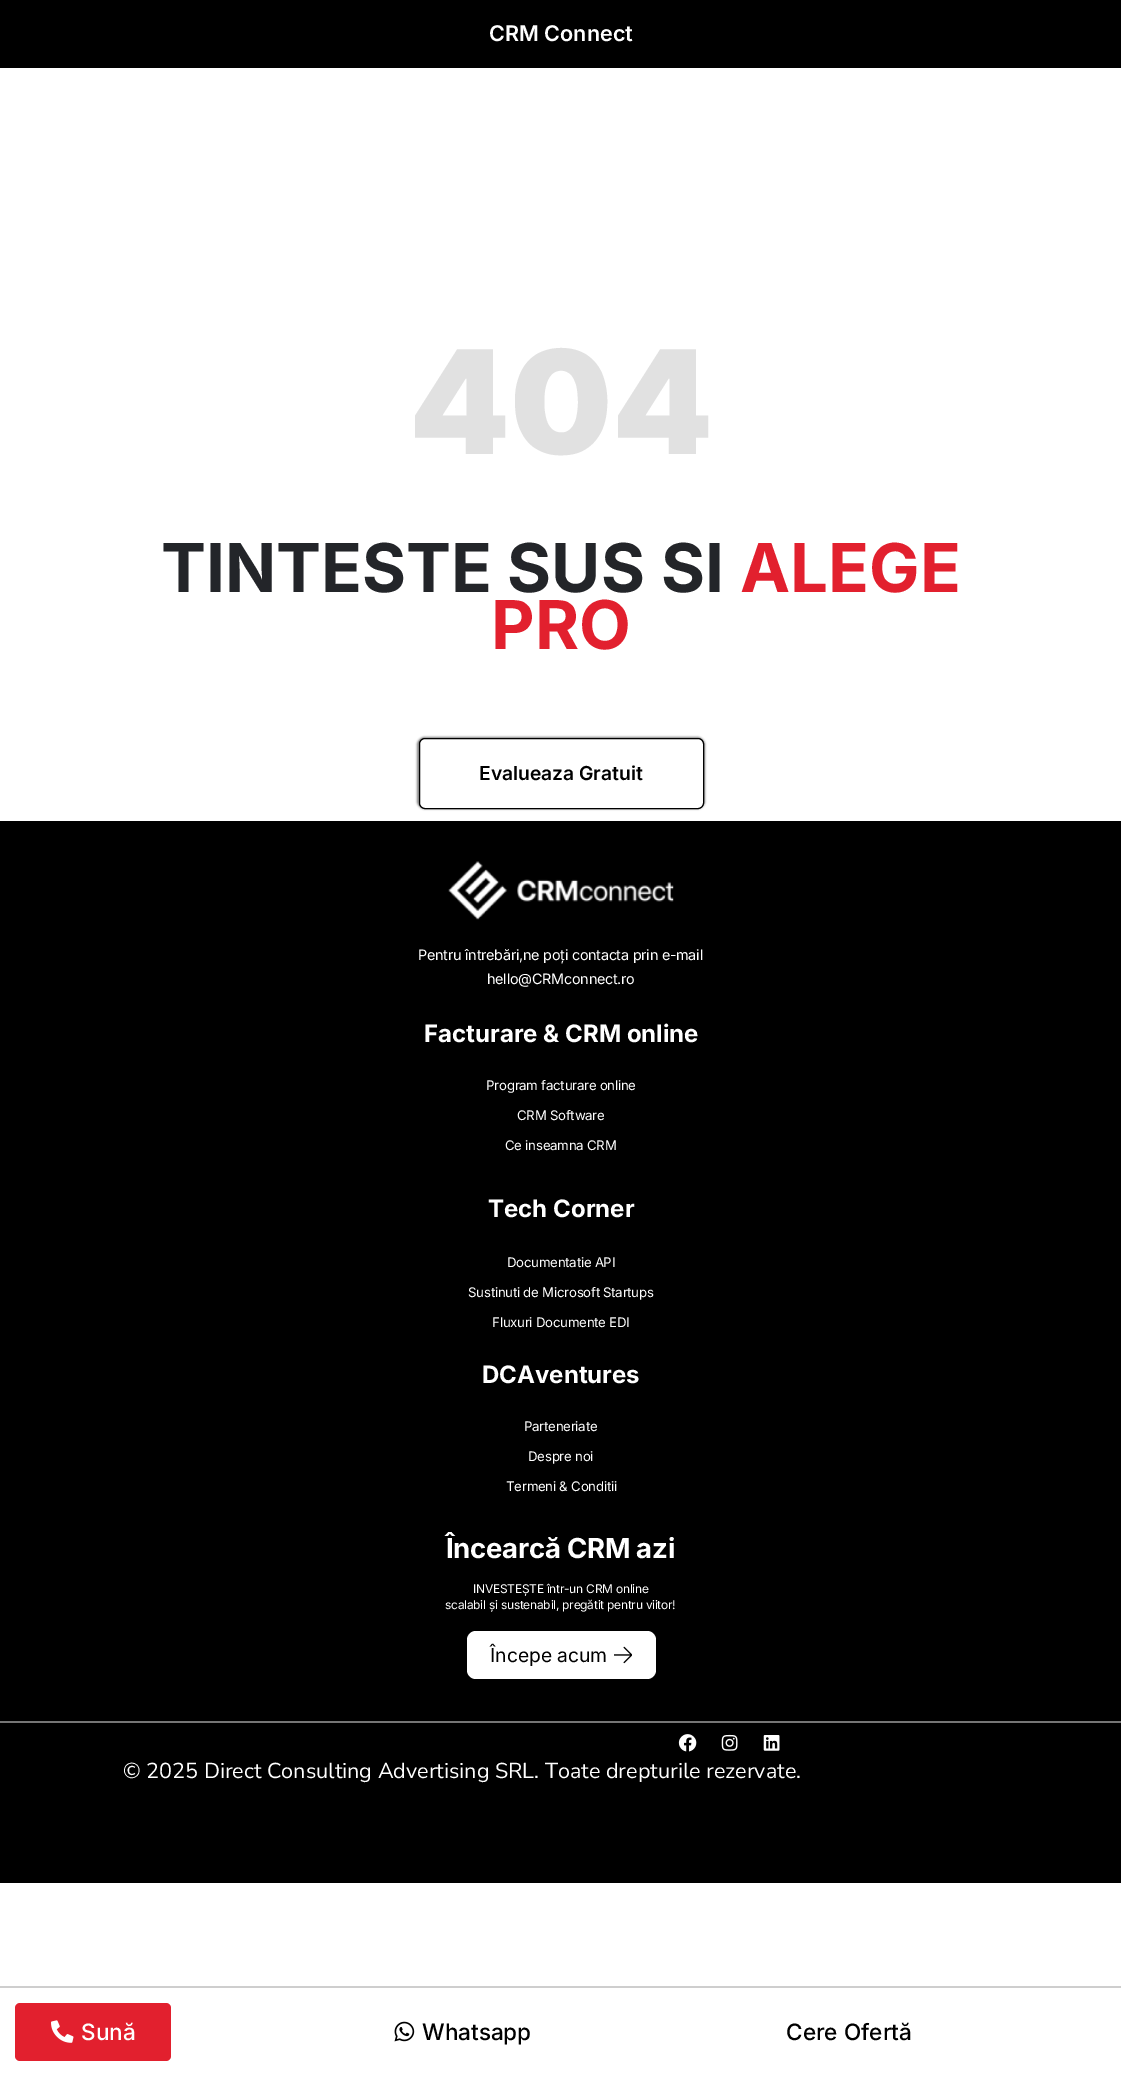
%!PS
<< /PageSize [1121 2076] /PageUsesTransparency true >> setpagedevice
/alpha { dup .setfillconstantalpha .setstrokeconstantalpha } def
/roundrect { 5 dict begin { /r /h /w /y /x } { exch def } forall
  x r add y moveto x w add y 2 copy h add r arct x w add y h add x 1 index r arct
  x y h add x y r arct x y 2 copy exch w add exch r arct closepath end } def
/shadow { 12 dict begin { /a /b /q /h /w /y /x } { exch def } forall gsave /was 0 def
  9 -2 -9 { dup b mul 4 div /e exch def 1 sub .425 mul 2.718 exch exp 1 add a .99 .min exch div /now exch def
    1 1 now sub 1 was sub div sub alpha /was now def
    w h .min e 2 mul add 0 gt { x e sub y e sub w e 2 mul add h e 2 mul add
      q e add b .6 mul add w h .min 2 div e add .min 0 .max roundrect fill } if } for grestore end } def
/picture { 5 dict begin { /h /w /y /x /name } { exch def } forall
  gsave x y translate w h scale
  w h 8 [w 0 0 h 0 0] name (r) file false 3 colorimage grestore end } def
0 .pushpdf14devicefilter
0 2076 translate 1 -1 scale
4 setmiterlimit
1 setgray
0 0 1121 2076 rectfill
0 setgray
0 0 1121 68 rectfill
/Inter-SemiBold [21.6 0 0 -21.6 0 0] selectfont
1 setgray
489 41 moveto (CRM Connect) show
/Inter-Black [144 0 0 -144 0 0] selectfont
0.882 setgray
409 454 moveto (404) show
/Inter-Bold [67.25 0 0 -67.25 0 0] selectfont
0.137 0.145 0.161 setrgbcolor
161 592 moveto (TINTESTE SUS SI) show
0.886 0.125 0.18 setrgbcolor
740 592 moveto (ALEGE) show
491 649 moveto (PRO) show
gsave
newpath 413 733 moveto 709 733 lineto 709 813 lineto 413 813 lineto closepath 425 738 moveto 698 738 lineto 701.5 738 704 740.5 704 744 curveto 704 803 lineto 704 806.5 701.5 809 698 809 curveto 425 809 lineto 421.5 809 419 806.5 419 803 curveto 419 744 lineto 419 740.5 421.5 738 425 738 curveto closepath eoclip newpath
0 setgray
417 737 288 72 8 1 0.5 shadow
grestore
0 setgray
419.5 738.5 284 70 5.5 roundrect stroke
/Inter-SemiBold [19.25 0 0 -19.25 0 0] selectfont
479 780 moveto (Evalueaza Gratuit) show
0 821 1121 900 rectfill
(img1.rgb) 448 861 226 59 picture
/Inter-Regular [14.4 0 0 -14.4 0 0] selectfont
1 setgray
418 960 moveto -0.25 0 (Pentru întrebări,ne poți contacta prin e-mail) ashow
487 984 moveto -0.25 0 (hello@CRMconnect.ro) ashow
/Inter-Bold [24 0 0 -24 0 0] selectfont
424 1042 moveto (Facturare & CRM online) show
/Inter-Regular [13.25 0 0 -13.25 0 0] selectfont
486 1090 moveto -0.25 0 (Program facturare online) ashow
517 1120 moveto -0.25 0 (CRM Software) ashow
505 1150 moveto -0.25 0 (Ce inseamna CRM) ashow
/Inter-Bold [24 0 0 -24 0 0] selectfont
488 1217 moveto (Tech Corner) show
/Inter-Regular [13.25 0 0 -13.25 0 0] selectfont
507 1267 moveto -0.25 0 (Documentatie API) ashow
468 1297 moveto -0.25 0 (Sustinuti de Microsoft Startups) ashow
492 1327 moveto -0.25 0 (Fluxuri Documente EDI) ashow
/Inter-Bold [24 0 0 -24 0 0] selectfont
482 1383 moveto (DCAventures) show
/Inter-Regular [13.25 0 0 -13.25 0 0] selectfont
524 1431 moveto -0.25 0 (Parteneriate) ashow
528 1461 moveto -0.25 0 (Despre noi) ashow
506 1491 moveto -0.25 0 (Termeni & Conditii) ashow
/Inter-Bold [27.5 0 0 -27.5 0 0] selectfont
446 1558 moveto -0.25 0 (Încearcă CRM azi) ashow
/Inter-Regular [12 0 0 -12 0 0] selectfont
473 1593 moveto -0.25 0 (INVESTEȘTE într-un CRM online) ashow
445 1609 moveto -0.25 0 (scalabil și sustenabil, pregătit pentru viitor!) ashow
467 1631 189 48 9 roundrect fill
/Inter-Regular [19.25 0 0 -19.25 0 0] selectfont
0 setgray
490 1662 moveto (Începe acum) show
(img2.rgb) 614 1646 18 18 picture
0 1723 1121 160 rectfill
0.459 setgray
0 1721 1121 2 rectfill
(img3.rgb) 678 1734 19 18 picture
(img4.rgb) 721 1734 17 17 picture
(img5.rgb) 763 1735 17 16 picture
/NunitoSans-ExtraLight [21.6 0 0 -21.6 0 0] selectfont
1 setgray
123 1778 moveto (© 2025 Direct Consulting Advertising SRL. Toate drepturile rezervate.) show
0.808 setgray
0 1986 1121 2 rectfill
0.886 0.125 0.18 setrgbcolor
15 2003 156 58 5 roundrect fill
(img6.rgb) 51 2020 23 23 picture
/Inter-Medium [22.5 0 0 -22.5 0 0] selectfont
1 setgray
81 2040 moveto (Sună) show
(img7.rgb) 394 2021 21 21 picture
0 setgray
422 2040 moveto (Whatsapp) show
786 2040 moveto (Cere Ofertă) show
.poppdf14devicefilter showpage
